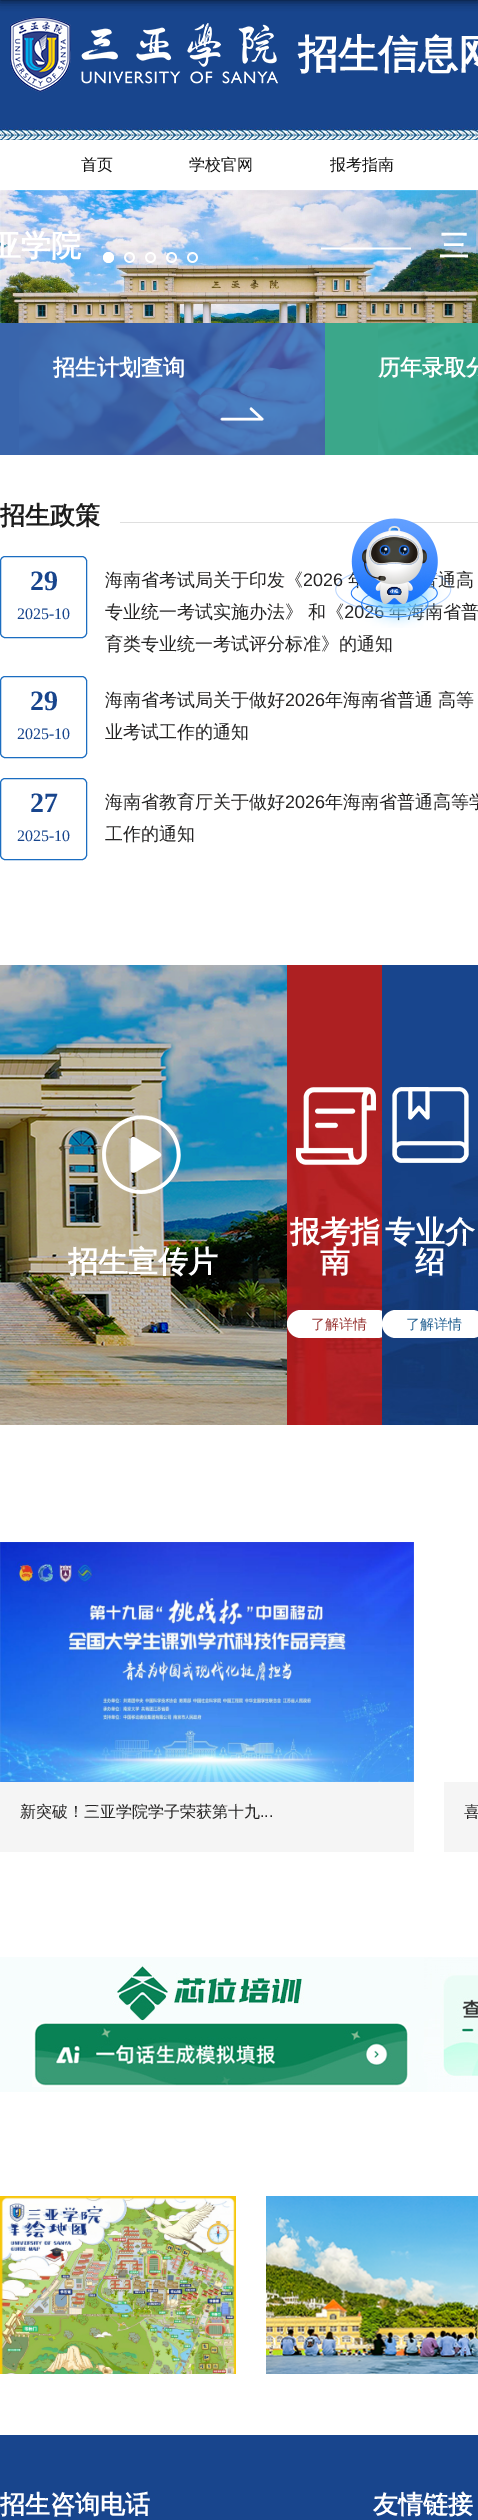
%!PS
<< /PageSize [478 2520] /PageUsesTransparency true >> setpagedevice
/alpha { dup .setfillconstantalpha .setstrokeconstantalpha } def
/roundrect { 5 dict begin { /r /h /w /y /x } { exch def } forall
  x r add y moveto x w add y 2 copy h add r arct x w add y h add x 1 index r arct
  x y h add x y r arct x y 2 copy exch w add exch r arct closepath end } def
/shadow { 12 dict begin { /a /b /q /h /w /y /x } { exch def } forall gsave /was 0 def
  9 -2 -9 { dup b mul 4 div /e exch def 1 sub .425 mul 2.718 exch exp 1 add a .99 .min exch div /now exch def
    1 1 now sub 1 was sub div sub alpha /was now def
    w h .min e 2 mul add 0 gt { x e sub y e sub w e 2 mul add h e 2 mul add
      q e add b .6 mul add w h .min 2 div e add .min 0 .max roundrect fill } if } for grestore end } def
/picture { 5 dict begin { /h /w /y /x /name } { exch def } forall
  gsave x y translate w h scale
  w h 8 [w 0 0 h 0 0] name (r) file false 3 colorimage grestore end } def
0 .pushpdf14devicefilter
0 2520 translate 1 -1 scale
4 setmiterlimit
1 setgray
0 0 478 2520 rectfill
0.094 0.271 0.553 setrgbcolor
0 0 478 128 rectfill
0 setgray
0 -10 478 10 0 5 0.8 shadow
(img1.rgb) 0 128 478 12 picture
(img2.rgb) 10 17 268 75 picture
/WenQuanYiZenHei-Bold [40 0 0 -40 0 0] selectfont
1 setgray
298 68 moveto (招生信息网) show
/WenQuanYiZenHei-Medium [16 0 0 -16 0 0] selectfont
0.071 setgray
81 170 moveto (首页) show
189 170 moveto (学校官网) show
330 170 moveto (报考指南) show
(img3.rgb) 0 190 478 133 picture
/WenQuanYiZenHei-Bold [30 0 0 -30 0 0] selectfont
1 setgray
-9 256 moveto (亚学院) show
/LiberationSans-Regular [30 0 0 -30 0 0] selectfont
321 256 moveto (———) show
/WenQuanYiZenHei-Bold [30 0 0 -30 0 0] selectfont
439 256 moveto (三) show
(img4.rgb) 103 252 11 11 picture
(img5.rgb) 103 252 11 11 picture
(img6.rgb) 124 252 11 11 picture
(img7.rgb) 145 252 11 11 picture
(img8.rgb) 166 252 11 11 picture
(img9.rgb) 187 252 11 11 picture
0.224 0.396 0.675 setrgbcolor
0 323 19 132 rectfill
(img10.rgb) 19 323 306 132 picture
/WenQuanYiZenHei-Bold [22 0 0 -22 0 0] selectfont
1 setgray
53 375 moveto (招生计划查询) show
0.231 0.655 0.541 setrgbcolor
325 323 53 132 rectfill
(img11.rgb) 378 323 100 132 picture
1 setgray
378 375 moveto (历年录取分) show
0.875 setgray
120 522 358 1 rectfill
/WenQuanYiZenHei-Bold [25 0 0 -25 0 0] selectfont
0.11 setgray
0 524 moveto (招生政策) show
0.106 0.427 0.757 setrgbcolor
0.5 556.5 86 81 4.5 roundrect stroke
/LiberationSerif-Bold [28 0 0 -28 0 0] selectfont
0.094 0.271 0.553 setrgbcolor
30 590 moveto (29) show
/LiberationSerif-Regular [16 0 0 -16 0 0] selectfont
17 619 moveto (2025-10) show
/WenQuanYiZenHei-Medium [18 0 0 -18 0 0] selectfont
0.145 0.141 0.141 setrgbcolor
105 586 moveto (海南省考试局关于印发《) show
/LiberationSans-Regular [18 0 0 -18 0 0] selectfont
303 586 moveto (2026) show
/WenQuanYiZenHei-Medium [18 0 0 -18 0 0] selectfont
438 586 moveto (通高) show
105 618 moveto (专业统一考试实施办法》 和《) show
/LiberationSans-Regular [18 0 0 -18 0 0] selectfont
344 618 moveto (2026) show
/WenQuanYiZenHei-Medium [18 0 0 -18 0 0] selectfont
407 618 moveto (海南省普) show
105 650 moveto (育类专业统一考试评分标准》的通知) show
0.106 0.427 0.757 setrgbcolor
0.5 676.5 86 81 4.5 roundrect stroke
/LiberationSerif-Bold [28 0 0 -28 0 0] selectfont
0.094 0.271 0.553 setrgbcolor
30 710 moveto (29) show
/LiberationSerif-Regular [16 0 0 -16 0 0] selectfont
17 739 moveto (2025-10) show
/WenQuanYiZenHei-Medium [18 0 0 -18 0 0] selectfont
0.145 0.141 0.141 setrgbcolor
105 706 moveto (海南省考试局关于做好) show
/LiberationSans-Regular [18 0 0 -18 0 0] selectfont
285 706 moveto (2026) show
/WenQuanYiZenHei-Medium [18 0 0 -18 0 0] selectfont
325 706 moveto (年海南省普通 高等) show
105 738 moveto (业考试工作的通知) show
0.106 0.427 0.757 setrgbcolor
0.5 778.5 86 81 4.5 roundrect stroke
/LiberationSerif-Bold [28 0 0 -28 0 0] selectfont
0.094 0.271 0.553 setrgbcolor
30 812 moveto (27) show
/LiberationSerif-Regular [16 0 0 -16 0 0] selectfont
17 841 moveto (2025-10) show
/WenQuanYiZenHei-Medium [18 0 0 -18 0 0] selectfont
0.145 0.141 0.141 setrgbcolor
105 808 moveto (海南省教育厅关于做好) show
/LiberationSans-Regular [18 0 0 -18 0 0] selectfont
285 808 moveto (2026) show
/WenQuanYiZenHei-Medium [18 0 0 -18 0 0] selectfont
325 808 moveto (年海南省普通高等学) show
105 840 moveto (工作的通知) show
(img12.rgb) 335 518 117 110 picture
(img13.rgb) 0 965 287 460 picture
(img14.rgb) 102 1115 79 79 picture
/WenQuanYiZenHei-Bold [30 0 0 -30 0 0] selectfont
1 setgray
68 1272 moveto (招生宣传片) show
0.678 0.125 0.133 setrgbcolor
287 965 95 146 rectfill
(img15.rgb) 287 1111 95 314 picture
(img16.rgb) 296 1087 80 78 picture
1 setgray
290 1242 moveto (报考指) show
320 1272 moveto (南) show
287 1310 104 28 14 roundrect fill
/WenQuanYiZenHei-Medium [14 0 0 -14 0 0] selectfont
0.592 0.204 0.196 setrgbcolor
311 1329 moveto (了解详情) show
0.094 0.271 0.553 setrgbcolor
382 965 96 156 rectfill
(img17.rgb) 382 1121 96 304 picture
(img18.rgb) 392 1087 77 76 picture
/WenQuanYiZenHei-Bold [30 0 0 -30 0 0] selectfont
1 setgray
385 1242 moveto (专业介) show
415 1272 moveto (绍) show
382 1310 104 28 14 roundrect fill
/WenQuanYiZenHei-Medium [14 0 0 -14 0 0] selectfont
0.145 0.38 0.573 setrgbcolor
406 1329 moveto (了解详情) show
(img19.rgb) 0 1542 414 240 picture
0.961 setgray
0 1782 414 70 rectfill
/WenQuanYiZenHei-Medium [16 0 0 -16 0 0] selectfont
0.145 0.141 0.141 setrgbcolor
20 1817 moveto (新突破！三亚学院学子荣获第十九) show
/LiberationSans-Regular [16 0 0 -16 0 0] selectfont
260 1817 moveto (...) show
0.961 setgray
444 1782 34 70 rectfill
/WenQuanYiZenHei-Medium [16 0 0 -16 0 0] selectfont
0.145 0.141 0.141 setrgbcolor
464 1817 moveto (喜) show
(img20.rgb) 0 1957 478 135 picture
(img21.rgb) 0 2196 236 178 picture
(img22.rgb) 266 2196 212 178 picture
0.094 0.271 0.553 setrgbcolor
0 2435 478 85 rectfill
/WenQuanYiZenHei-Bold [25 0 0 -25 0 0] selectfont
1 setgray
0 2513 moveto (招生咨询电话) show
373 2513 moveto (友情链接) show
.poppdf14devicefilter showpage
